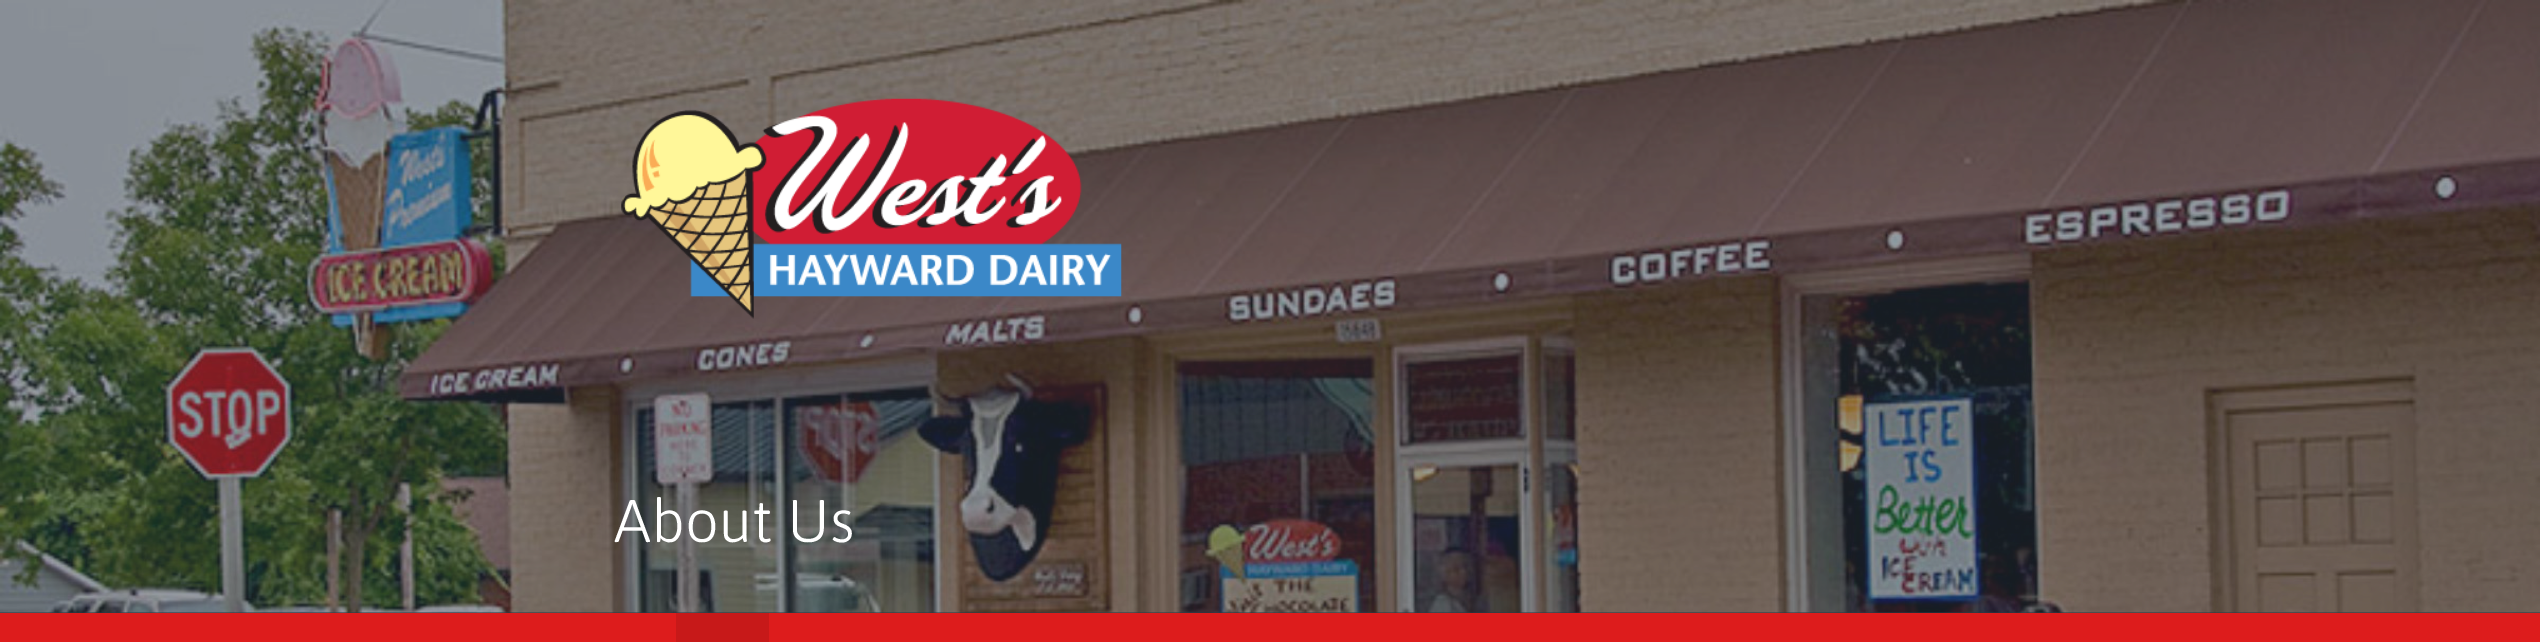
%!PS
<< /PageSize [2540 642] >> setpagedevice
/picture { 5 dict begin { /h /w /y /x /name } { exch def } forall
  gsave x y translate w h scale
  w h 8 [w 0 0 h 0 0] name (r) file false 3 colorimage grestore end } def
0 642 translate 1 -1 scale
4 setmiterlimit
0.867 0.11 0.11 setrgbcolor
0 0 2540 642 rectfill
0.173 0.22 0.271 setrgbcolor
0 612 2540 1 rectfill
(img1.rgb) 0 0 2540 613 picture
(img2.rgb) 621 98 501 221 picture
/Asap-Light [60 0 0 -60 0 0] selectfont
1 setgray
614 542 moveto (About Us) show
0.78 0.098 0.098 setrgbcolor
676 613 93 29 rectfill
showpage
